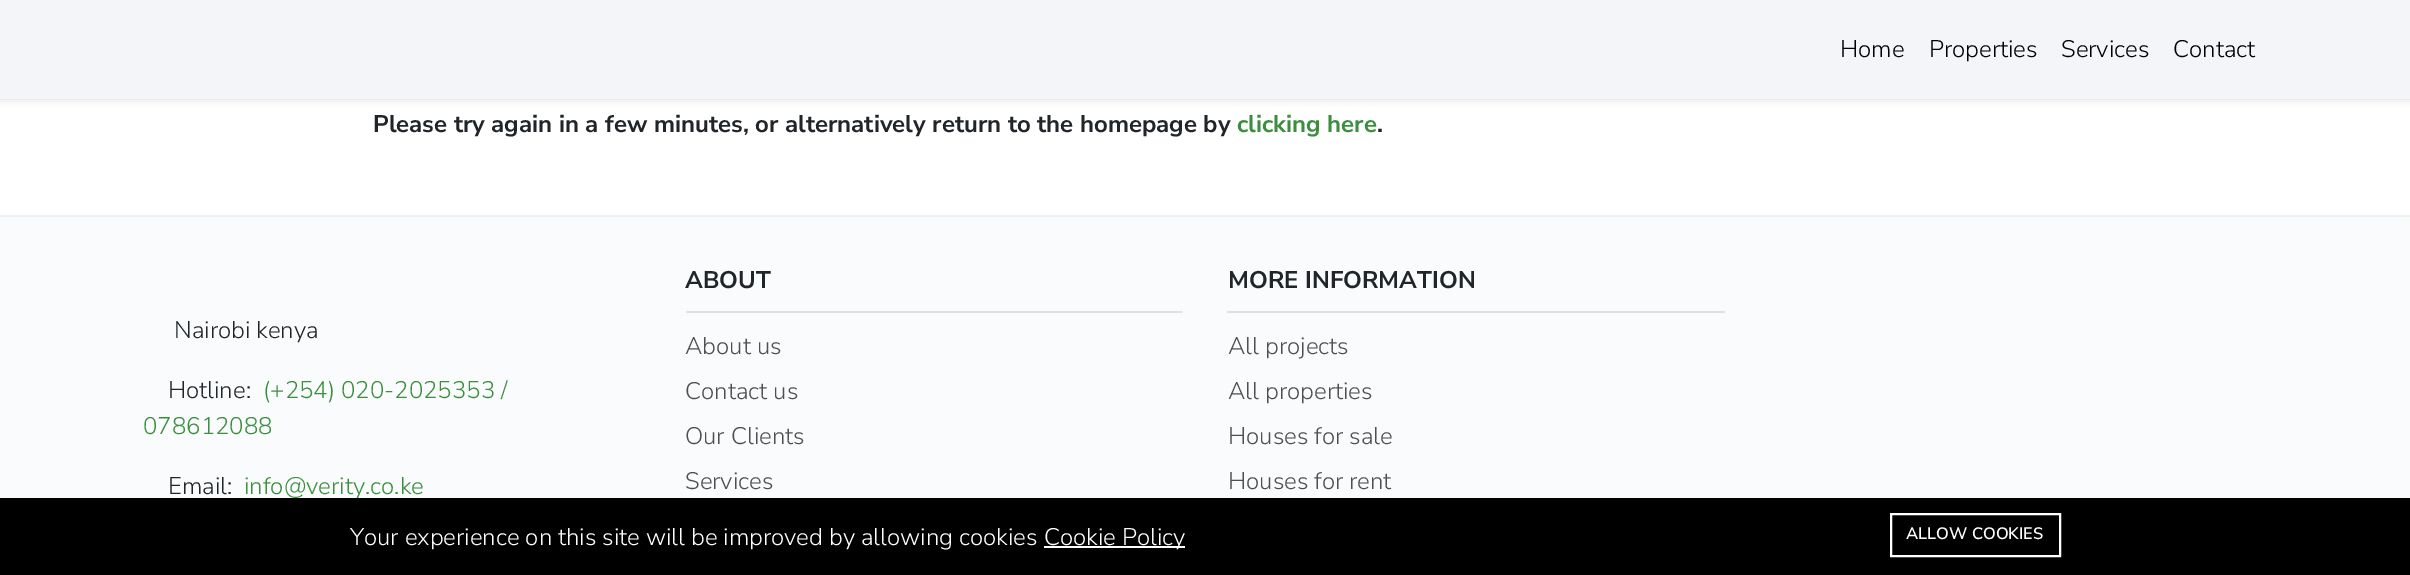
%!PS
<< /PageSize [2410 575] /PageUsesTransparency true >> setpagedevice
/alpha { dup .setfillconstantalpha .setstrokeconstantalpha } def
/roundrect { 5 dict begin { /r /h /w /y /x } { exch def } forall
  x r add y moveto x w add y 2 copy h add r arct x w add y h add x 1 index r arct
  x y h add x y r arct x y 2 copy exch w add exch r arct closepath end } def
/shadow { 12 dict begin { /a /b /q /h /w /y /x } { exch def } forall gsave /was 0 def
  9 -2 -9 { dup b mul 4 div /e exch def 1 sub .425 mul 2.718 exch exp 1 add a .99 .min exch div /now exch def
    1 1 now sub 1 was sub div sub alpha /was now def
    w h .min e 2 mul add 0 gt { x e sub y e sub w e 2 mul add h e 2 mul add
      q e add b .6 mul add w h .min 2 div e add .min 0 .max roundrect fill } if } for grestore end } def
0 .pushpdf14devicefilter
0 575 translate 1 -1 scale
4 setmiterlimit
1 setgray
0 0 2410 575 rectfill
0 setgray
0 0 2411 99 0 4 0.15 shadow
0.957 0.961 0.976 setrgbcolor
0 0 2410 99 rectfill
/NunitoSans-Light [24 0 0 -24 0 0] selectfont
0 setgray
1840 57 moveto (Home) show
1929 57 moveto (Properties) show
2061 57 moveto (Services) show
2173 57 moveto (Contact) show
/NunitoSans-Bold [24 0 0 -24 0 0] selectfont
0.129 0.145 0.161 setrgbcolor
373 132 moveto (Please try again in a few minutes, or alternatively return to the homepage by) show
0.227 0.557 0.235 setrgbcolor
1237 132 moveto (clicking here) show
0.129 0.145 0.161 setrgbcolor
1377 132 moveto (.) show
0.98 0.984 0.992 setrgbcolor
0 217 2410 281 rectfill
0.941 setgray
0 215 2410 2 rectfill
/NunitoSans-Light [24 0 0 -24 0 0] selectfont
0.129 0.145 0.161 setrgbcolor
174 338 moveto (Nairobi kenya) show
168 398 moveto (Hotline:) show
0.227 0.557 0.235 setrgbcolor
263 398 moveto (\(+254\) 020-2025353 /) show
143 434 moveto (078612088) show
0.129 0.145 0.161 setrgbcolor
168 494 moveto (Email:) show
0.227 0.557 0.235 setrgbcolor
244 494 moveto (info@verity.co.ke) show
0.878 setgray
686 311 496 2 rectfill
/NunitoSans-Bold [24 0 0 -24 0 0] selectfont
0.129 0.145 0.161 setrgbcolor
685 288 moveto (ABOUT) show
/NunitoSans-Light [24 0 0 -24 0 0] selectfont
0.31 setgray
685 354 moveto (About us) show
685 399 moveto (Contact us) show
685 444 moveto (Our Clients) show
685 489 moveto (Services) show
0.878 setgray
1227 311 498 2 rectfill
/NunitoSans-Bold [24 0 0 -24 0 0] selectfont
0.129 0.145 0.161 setrgbcolor
1228 288 moveto (MORE INFORMATION) show
/NunitoSans-Light [24 0 0 -24 0 0] selectfont
0.31 setgray
1228 354 moveto (All projects) show
1228 399 moveto (All properties) show
1228 444 moveto (Houses for sale) show
1228 489 moveto (Houses for rent) show
0 setgray
0 498 2410 77 rectfill
1 setgray
350 545 moveto (Your experience on this site will be improved by allowing cookies) show
1044 546 141 2 rectfill
1044 545 moveto (Cookie Policy) show
2 setlinewidth
1891 514 169 42 rectstroke
/NunitoSans-SemiBold [16.5 0 0 -16.5 0 0] selectfont
1906 539 moveto (ALLOW COOKIES) show
.poppdf14devicefilter showpage
